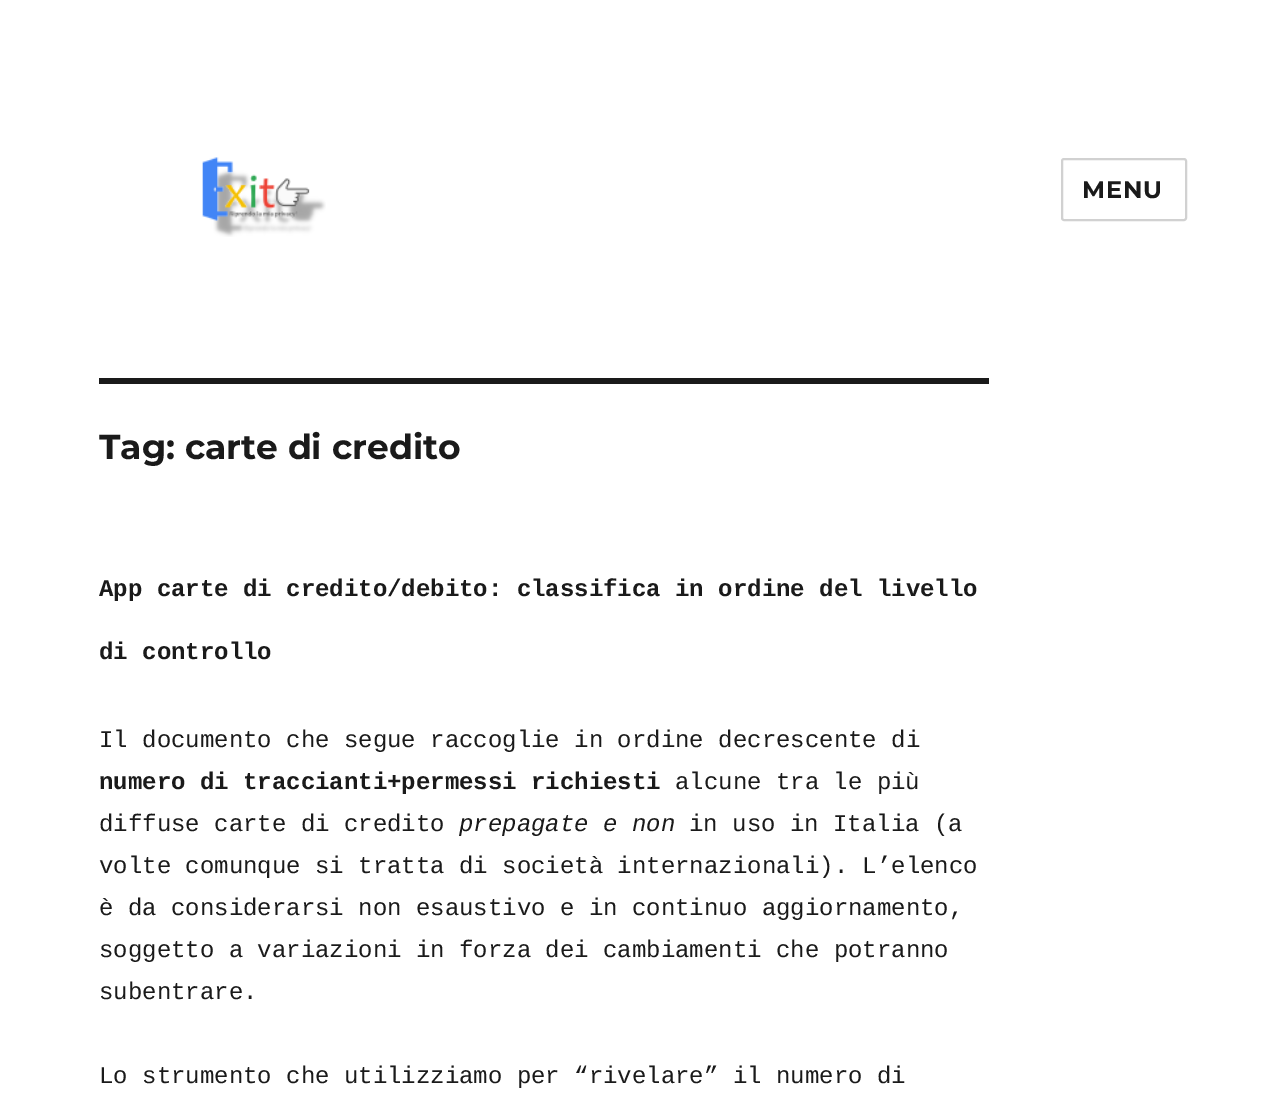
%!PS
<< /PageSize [1285 1106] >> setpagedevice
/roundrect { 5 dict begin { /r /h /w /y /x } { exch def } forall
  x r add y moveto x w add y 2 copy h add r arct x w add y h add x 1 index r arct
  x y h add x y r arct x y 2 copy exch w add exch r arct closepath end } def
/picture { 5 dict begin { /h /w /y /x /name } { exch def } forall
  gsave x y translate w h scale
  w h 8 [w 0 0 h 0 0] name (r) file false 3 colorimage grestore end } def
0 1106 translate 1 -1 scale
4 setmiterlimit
1 setgray
0 0 1285 1106 rectfill
(img1.rgb) 202 157 124 80 picture
0.82 setgray
2 setlinewidth
1062 159 124 61 2 roundrect stroke
/Montserrat-Bold [24 0 0 -24 0 0] selectfont
0.102 setgray
1082 198 moveto 1 0 (MENU) ashow
99 378 890 6 rectfill
/Montserrat-Bold [34.5 0 0 -34.5 0 0] selectfont
99 459 moveto (Tag: carte di credito) show
/LiberationMono-Bold [24 0 0 -24 0 0] selectfont
99 596 moveto (App carte di credito/debito: classifica in ordine del livello) show
99 659 moveto (di controllo) show
/LiberationMono-Regular [24 0 0 -24 0 0] selectfont
99 747 moveto (Il documento che segue raccoglie in ordine decrescente di) show
/LiberationMono-Bold [24 0 0 -24 0 0] selectfont
99 789 moveto (numero di traccianti+permessi richiesti) show
/LiberationMono-Regular [24 0 0 -24 0 0] selectfont
675 789 moveto (alcune tra le più) show
99 831 moveto (diffuse carte di credito) show
/LiberationMono-Italic [24 0 0 -24 0 0] selectfont
459 831 moveto (prepagate e non) show
/LiberationMono-Regular [24 0 0 -24 0 0] selectfont
689 831 moveto (in uso in Italia \(a) show
99 873 moveto (volte comunque si tratta di società internazionali\). L’elenco) show
99 915 moveto (è da considerarsi non esaustivo e in continuo aggiornamento,) show
99 957 moveto (soggetto a variazioni in forza dei cambiamenti che potranno) show
99 999 moveto (subentrare.) show
99 1083 moveto (Lo strumento che utilizziamo per “rivelare” il numero di) show
showpage
